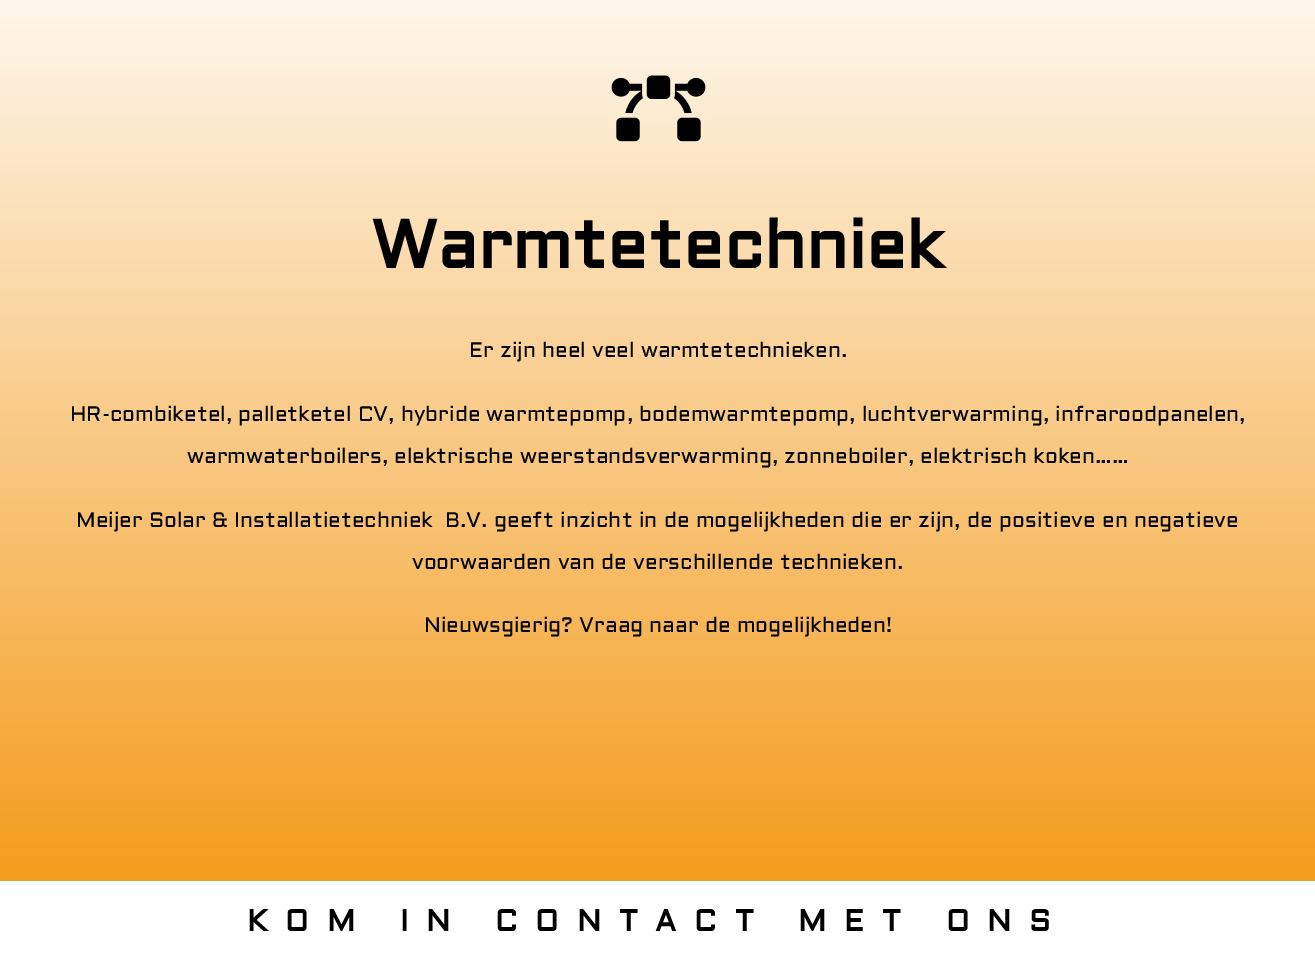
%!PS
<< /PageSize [1315 979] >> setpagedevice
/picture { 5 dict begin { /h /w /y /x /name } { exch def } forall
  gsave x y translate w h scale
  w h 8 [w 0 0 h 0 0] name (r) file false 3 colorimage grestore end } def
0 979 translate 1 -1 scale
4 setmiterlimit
1 setgray
0 0 1315 979 rectfill
gsave newpath 0 0 moveto 1315 0 lineto 1315 881 lineto 0 881 lineto closepath clip newpath
<< /ShadingType 2 /ColorSpace /DeviceRGB /Coords [658 -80 658 881] /Extend [true true] /Function << /FunctionType 2 /Domain [0 1] /C0 [1 1 1] /C1 [0.957 0.612 0.11] /N 1 >> >> shfill grestore
(img1.rgb) 611 75 95 67 picture
/Aldrich-Bold [67.5 0 0 -67.5 0 0] selectfont
0 setgray
371 268 moveto (Warmtetechniek) show
/Aldrich-Regular [21 0 0 -21 0 0] selectfont
469 357 moveto (Er zijn heel veel warmtetechnieken.) show
70 421 moveto (HR-combiketel, palletketel CV, hybride warmtepomp, bodemwarmtepomp, luchtverwarming, infraroodpanelen,) show
187 463 moveto (warmwaterboilers, elektrische weerstandsverwarming, zonneboiler, elektrisch koken……) show
76 527 moveto (Meijer Solar & Installatietechniek  B.V. geeft inzicht in de mogelijkheden die er zijn, de positieve en negatieve) show
412 569 moveto (voorwaarden van de verschillende technieken.) show
424 632 moveto (Nieuwsgierig? Vraag naar de mogelijkheden!) show
/Aldrich-Bold [30 0 0 -30 0 0] selectfont
247 931 moveto 18 0 (KOM IN CONTACT MET ONS) ashow
showpage
